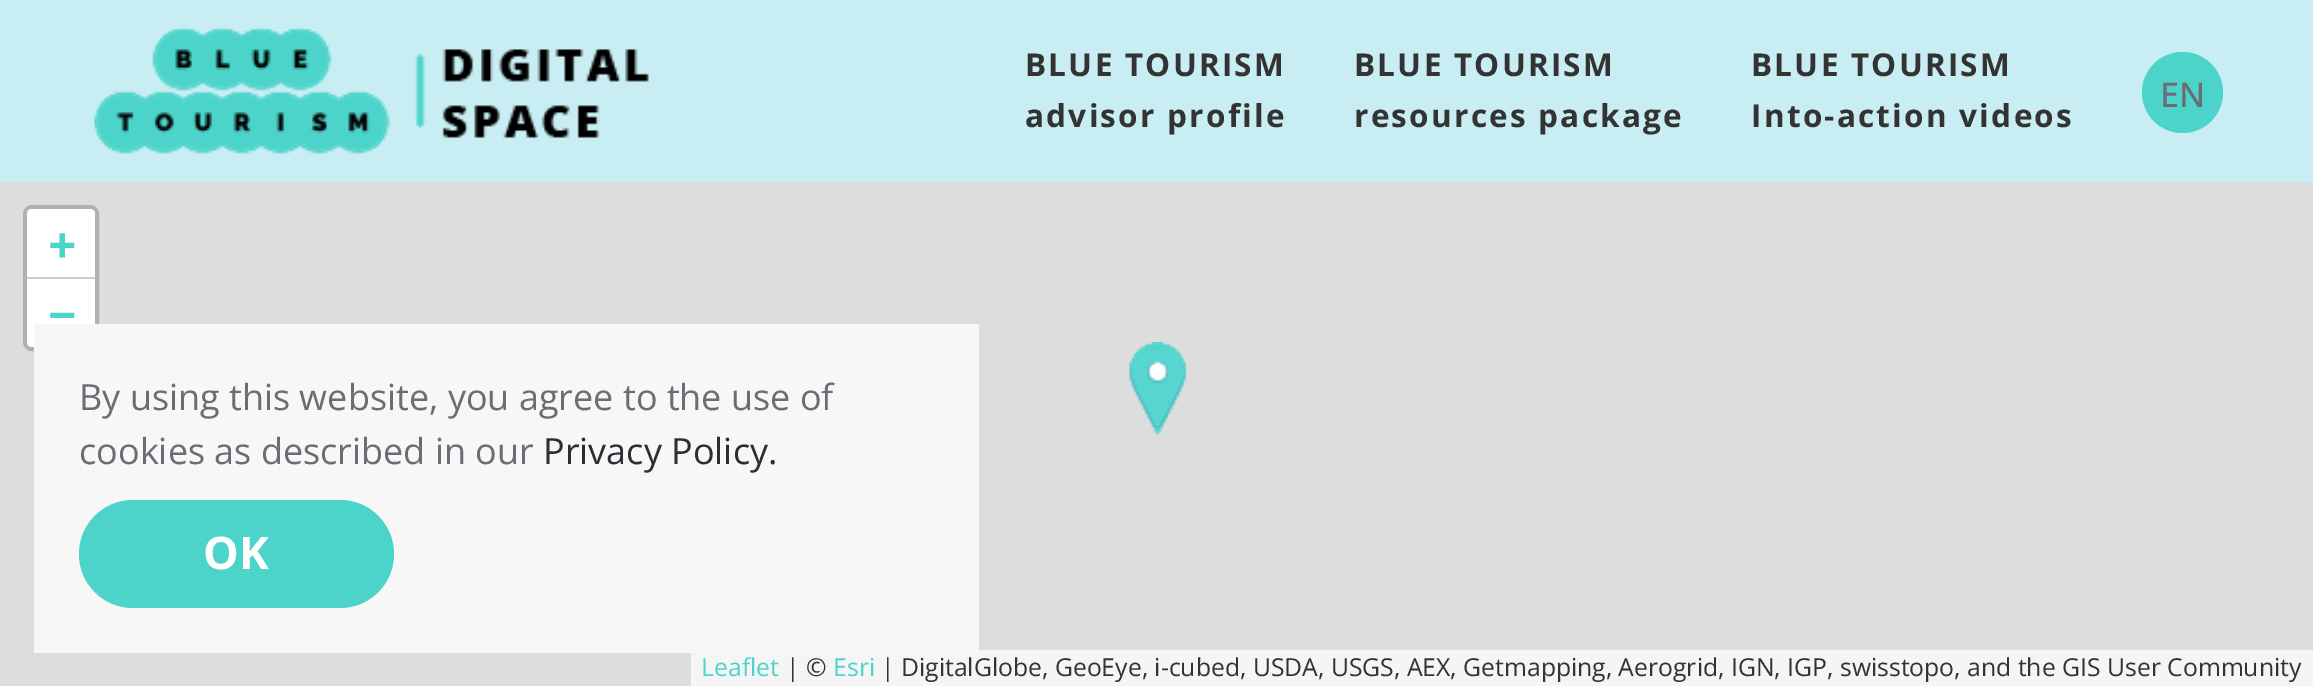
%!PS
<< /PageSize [2313 686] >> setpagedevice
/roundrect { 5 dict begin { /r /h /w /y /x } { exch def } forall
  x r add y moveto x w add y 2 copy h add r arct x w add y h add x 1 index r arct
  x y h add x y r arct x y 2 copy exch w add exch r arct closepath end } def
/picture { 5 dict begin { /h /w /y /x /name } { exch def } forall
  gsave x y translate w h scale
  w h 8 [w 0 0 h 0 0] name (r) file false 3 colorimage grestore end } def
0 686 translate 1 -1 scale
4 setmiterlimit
0.784 0.929 0.949 setrgbcolor
0 0 2313 686 rectfill
(img1.rgb) 94 26 555 128 picture
/OpenSans-Bold [31.5 0 0 -31.5 0 0] selectfont
0.2 setgray
1025 76 moveto 2.25 0 (BLUE TOURISM) ashow
1025 127 moveto 2.25 0 (advisor profile) ashow
1354 76 moveto 2.25 0 (BLUE TOURISM) ashow
1354 127 moveto 2.25 0 (resources package) ashow
1751 76 moveto 2.25 0 (BLUE TOURISM) ashow
1751 127 moveto 2.25 0 (Into-action videos) ashow
0.298 0.827 0.792 setrgbcolor
newpath 2182.5 92.5 40.5 0 360 arc closepath fill
/OpenSans-Medium [34 0 0 -34 0 0] selectfont
0.424 0.427 0.455 setrgbcolor
2160 107 moveto (EN) show
0.867 setgray
0 182 2313 504 rectfill
0.694 setgray
5 setlinewidth
25.5 207.5 71 141 6.5 roundrect stroke
1 setgray
newpath 32 209 moveto 90 209 lineto 93 209 95 211 95 214 curveto 95 279 lineto 27 279 lineto 27 214 lineto 27 211 29 209 32 209 curveto closepath fill
0.8 setgray
27 277 68 2 rectfill
/OpenSans-Bold [50 0 0 -50 0 0] selectfont
0.298 0.831 0.796 setrgbcolor
48 263 moveto (+) show
1 setgray
newpath 27 279 moveto 95 279 lineto 95 342 lineto 95 345 93 347 90 347 curveto 32 347 lineto 29 347 27 345 27 342 curveto closepath fill
0.298 0.831 0.796 setrgbcolor
48 333 moveto (−) show
0.961 setgray
691 650 1622 36 rectfill
/OpenSans-Regular [24.75 0 0 -24.75 0 0] selectfont
0.298 0.831 0.796 setrgbcolor
701 676 moveto (Leaflet) show
0.2 setgray
786 676 moveto (| ©) show
0.298 0.831 0.796 setrgbcolor
833 676 moveto (Esri) show
0.2 setgray
881 676 moveto (| DigitalGlobe, GeoEye, i-cubed, USDA, USGS, AEX, Getmapping, Aerogrid, IGN, IGP, swisstopo, and the GIS User Community) show
(img2.rgb) 1129 342 58 93 picture
0.969 setgray
34 324 945 329 rectfill
/OpenSans-Regular [36 0 0 -36 0 0] selectfont
0.424 0.427 0.455 setrgbcolor
79 410 moveto (By using this website, you agree to the use of) show
79 464 moveto (cookies as described in our) show
0.176 0.18 0.2 setrgbcolor
543 464 moveto (Privacy Policy.) show
0.298 0.831 0.796 setrgbcolor
79 500 315 108 54 roundrect fill
/OpenSans-Bold [45 0 0 -45 0 0] selectfont
1 setgray
203 569 moveto (OK) show
showpage
